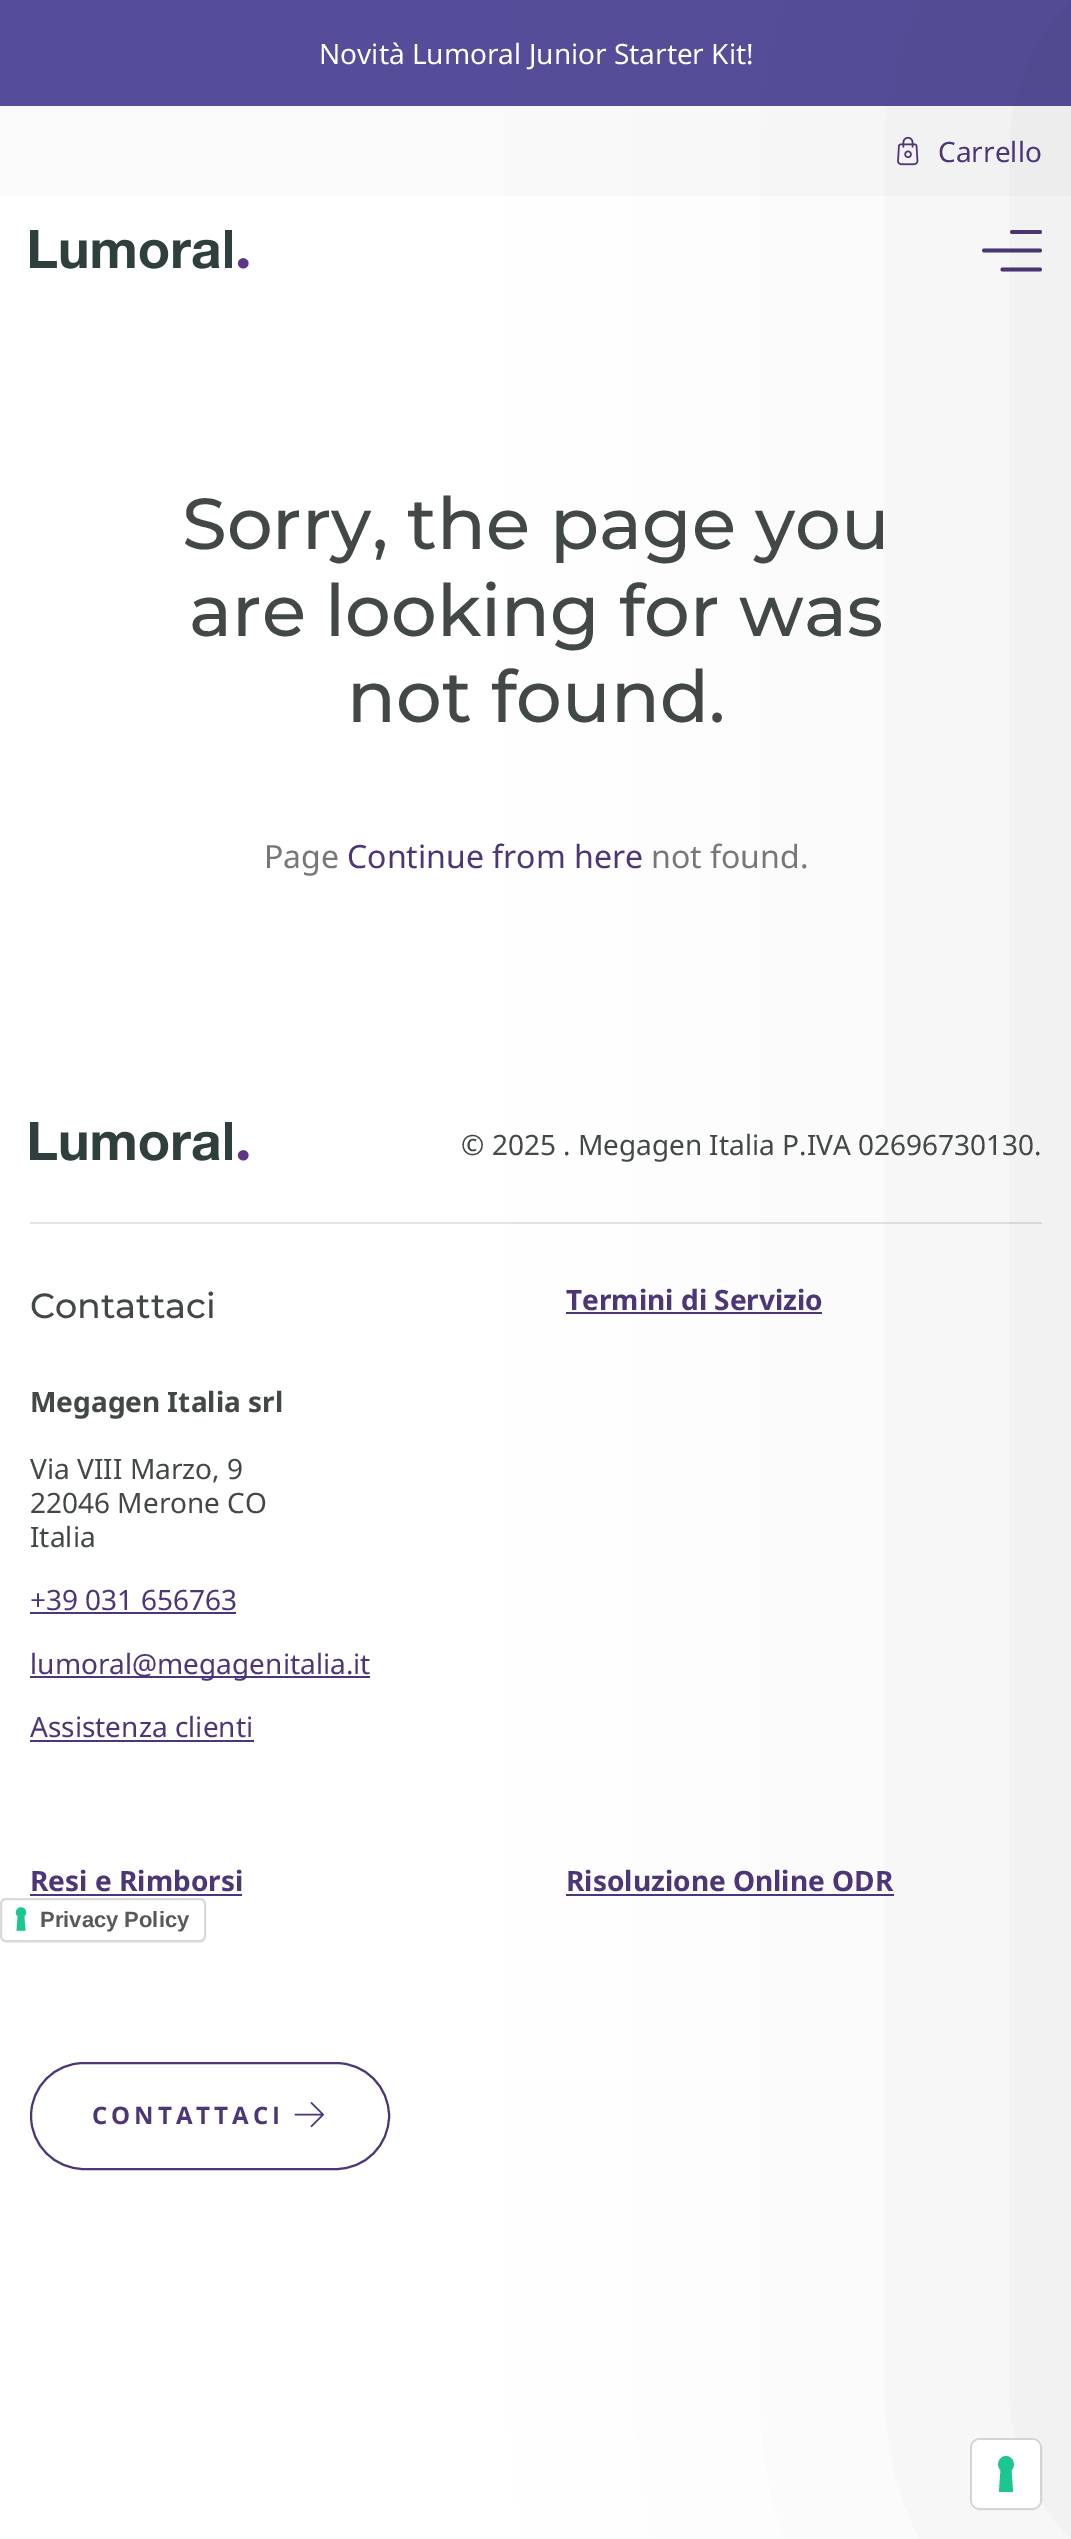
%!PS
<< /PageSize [1071 2539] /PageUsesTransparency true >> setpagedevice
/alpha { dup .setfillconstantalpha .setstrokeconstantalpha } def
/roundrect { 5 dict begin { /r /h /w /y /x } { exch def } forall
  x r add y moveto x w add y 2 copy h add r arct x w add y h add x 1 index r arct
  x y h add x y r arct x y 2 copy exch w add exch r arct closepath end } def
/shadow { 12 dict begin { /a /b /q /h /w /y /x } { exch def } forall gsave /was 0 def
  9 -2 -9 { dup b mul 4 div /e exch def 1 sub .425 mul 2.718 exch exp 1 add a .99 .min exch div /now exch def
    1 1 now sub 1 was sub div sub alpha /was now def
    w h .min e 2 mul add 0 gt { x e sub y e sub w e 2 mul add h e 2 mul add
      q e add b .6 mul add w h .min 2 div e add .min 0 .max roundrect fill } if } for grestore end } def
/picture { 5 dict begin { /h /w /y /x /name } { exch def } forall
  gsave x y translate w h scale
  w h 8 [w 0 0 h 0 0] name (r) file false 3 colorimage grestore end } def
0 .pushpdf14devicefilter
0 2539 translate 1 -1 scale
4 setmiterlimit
1 setgray
0 0 1071 2539 rectfill
0.333 0.302 0.6 setrgbcolor
0 0 1071 106 rectfill
0.98 setgray
0 106 1071 90 rectfill
(img1.rgb) 897 136 22 30 picture
0.302 0.212 0.467 setrgbcolor
3.8 setlinewidth
1 setlinecap
newpath 1040 250.5 moveto 984 250.5 lineto 1040 232 moveto 1012 232 lineto 1040 269.5 moveto 1002.5 269.5 lineto stroke
0.89 setgray
30 1222 1012 2 rectfill
0.302 0.212 0.467 setrgbcolor
30 1676 340 2 rectfill
566 1312 256 2 rectfill
566 1894 328 2 rectfill
2 setlinewidth
0 setlinecap
31 2063 358 106 53 roundrect stroke
(img4.rgb) 294 2102 30 26 picture
0 setgray
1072 0 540 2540 0 250 0.1 shadow
/NotoSans-Regular [28 0 0 -28 0 0] selectfont
1 setgray
319 64 moveto (Novità Lumoral Junior Starter Kit!) show
0.302 0.212 0.467 setrgbcolor
938 162 moveto (Carrello) show
(img2.rgb) 30 230 219 39 picture
/Montserrat-Medium [72 0 0 -72 0 0] selectfont
0.259 0.282 0.275 setrgbcolor
182 549 moveto (Sorry, the page you) show
189 636 moveto (are looking for was) show
347 722 moveto (not found.) show
/NotoSans-Regular [32 0 0 -32 0 0] selectfont
0.475 0.463 0.463 setrgbcolor
264 868 moveto (Page) show
0.302 0.212 0.467 setrgbcolor
347 868 moveto (Continue from here) show
0.475 0.463 0.463 setrgbcolor
651 868 moveto (not found.) show
(img2.rgb) 30 1122 219 39 picture
/NotoSans-Regular [28 0 0 -28 0 0] selectfont
0.259 0.282 0.275 setrgbcolor
461 1155 moveto (© 2025 . Megagen Italia P.IVA 02696730130.) show
/Montserrat-Medium [35 0 0 -35 0 0] selectfont
30 1318 moveto (Contattaci) show
/NotoSans-Bold [28 0 0 -28 0 0] selectfont
30 1412 moveto (Megagen Italia srl) show
/NotoSans-Regular [28 0 0 -28 0 0] selectfont
30 1479 moveto (Via VIII Marzo, 9) show
30 1513 moveto (22046 Merone CO) show
30 1547 moveto (Italia) show
0.302 0.212 0.467 setrgbcolor
30 1610 moveto (+39 031 656763) show
30 1612 206 2 rectfill
30 1674 moveto (lumoral@megagenitalia.it) show
30 1737 moveto (Assistenza clienti) show
30 1740 224 2 rectfill
/NotoSans-Bold [28 0 0 -28 0 0] selectfont
566 1310 moveto (Termini di Servizio) show
30 1891 moveto (Resi e Rimborsi) show
30 1894 212 2 rectfill
566 1891 moveto (Risoluzione Online ODR) show
0 setgray
2 1902 202 40 4 1 0.15 shadow
1 setgray
0 1898 206 44 6 roundrect fill
(img3.rgb) 15 1907 12 24 picture
0.851 setgray
1 1899 204 42 5 roundrect stroke
/LiberationSans-Bold [22 0 0 -22 0 0] selectfont
0.349 setgray
40 1927 moveto (Privacy Policy) show
/OpenSans-Bold [24 0 0 -24 0 0] selectfont
0.302 0.212 0.467 setrgbcolor
92 2124 moveto 4 0 (CONTATTACI) ashow
0.831 setgray
971 2439 70 70 9 roundrect stroke
1 setgray
972 2440 68 68 8 roundrect fill
0.11 0.776 0.569 setrgbcolor
newpath 1006 2456 moveto 1013 2456 1016.5 2465.5 1011.5 2470 curveto 1013 2492 lineto 999 2492 lineto 1000.5 2470 lineto 995.5 2465.5 999 2456 1006 2456 curveto closepath eofill
.poppdf14devicefilter showpage
